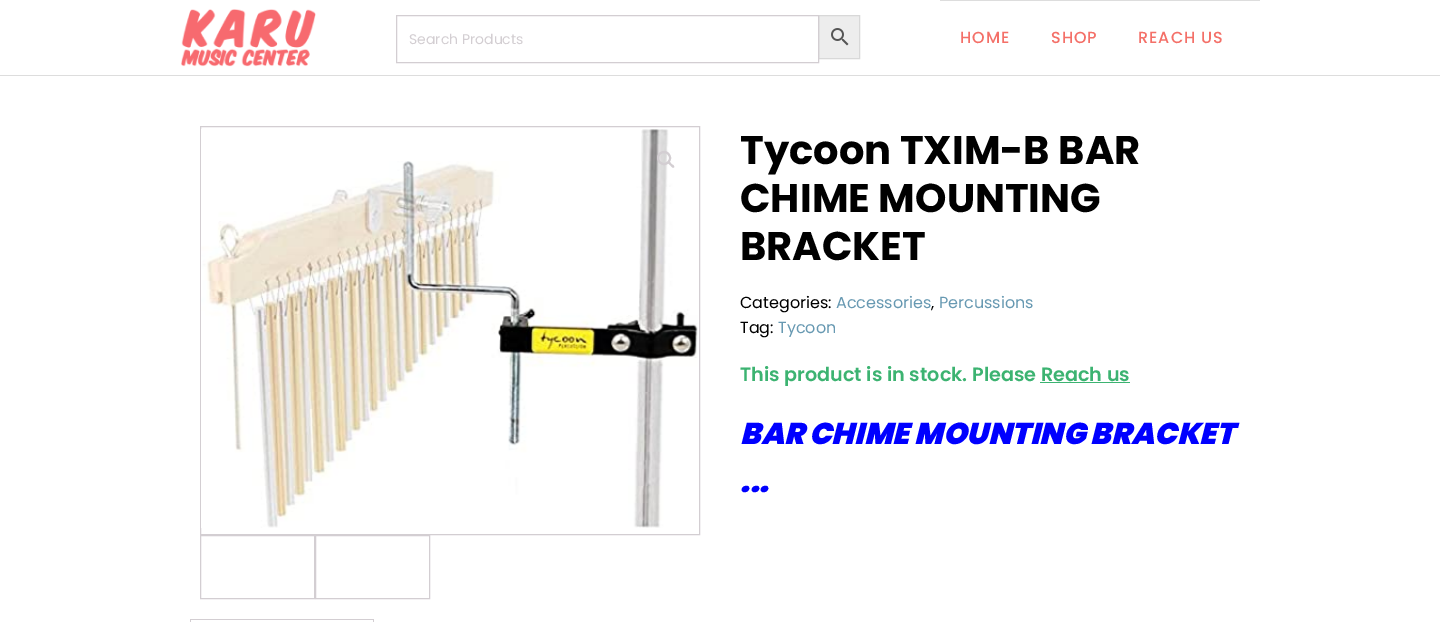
%!PS
<< /PageSize [1440 622] >> setpagedevice
/picture { 5 dict begin { /h /w /y /x /name } { exch def } forall
  gsave x y translate w h scale
  w h 8 [w 0 0 h 0 0] name (r) file false 3 colorimage grestore end } def
0 622 translate 1 -1 scale
4 setmiterlimit
1 setgray
0 0 1440 622 rectfill
0.867 setgray
0 75 1440 1 rectfill
(img1.rgb) 181 9 135 58 picture
0.929 setgray
newpath 818.5 15.5 moveto 859.5 15.5 lineto 859.5 58.5 lineto 818.5 58.5 lineto closepath gsave fill grestore
0.847 setgray
stroke
0.827 0.808 0.824 setrgbcolor
396.5 15.5 422 47 rectstroke
/Poppins-Regular [14 0 0 -14 0 0] selectfont
409 44 moveto (Search Products) show
(img2.rgb) 831 28 18 18 picture
0.867 setgray
940 0 320 1 rectfill
/Poppins-Medium [16 0 0 -16 0 0] selectfont
0.957 0.439 0.408 setrgbcolor
960 43 moveto 1 0 (HOME) ashow
1051 43 moveto 1 0 (SHOP) ashow
1138 43 moveto 1 0 (REACH US) ashow
0.827 0.808 0.824 setrgbcolor
200.5 126.5 499 408 rectstroke
(img3.rgb) 201 129 497 399 picture
2 setlinewidth
newpath 664 158 6 0 360 arc closepath stroke
newpath 668 162 moveto 669.5 160.5 671 163.5 671.5 164 curveto 672.5 164.5 675 166 674 167.5 curveto 672.5 168.5 671 166 670.5 165.5 curveto 669.5 164.5 667 163 668 162 curveto closepath fill
1 setlinewidth
200.5 535.5 114 63 rectstroke
315.5 535.5 114 63 rectstroke
/Poppins-Bold [40 0 0 -40 0 0] selectfont
0 setgray
740 164 moveto (Tycoon TXIM-B BAR) show
740 212 moveto (CHIME MOUNTING) show
740 260 moveto (BRACKET) show
/Poppins-Regular [16 0 0 -16 0 0] selectfont
740 308 moveto (Categories:) show
0.404 0.6 0.698 setrgbcolor
836 308 moveto (Accessories) show
0 setgray
931 308 moveto (,) show
0.404 0.6 0.698 setrgbcolor
939 308 moveto (Percussions) show
0 setgray
740 333 moveto (Tag:) show
0.404 0.6 0.698 setrgbcolor
778 333 moveto (Tycoon) show
/Poppins-SemiBold [19.2 0 0 -19.2 0 0] selectfont
0.235 0.702 0.443 setrgbcolor
740 381 moveto (This product is in stock. Please Reach us) show
1040 382 90 1 rectfill
/Poppins-BlackItalic [30 0 0 -30 0 0] selectfont
0 0 1 setrgbcolor
740 444 moveto (BAR CHIME MOUNTING BRACKET) show
740 492 moveto (...) show
0.827 0.808 0.824 setrgbcolor
190 619 184 1 rectfill
373 619 1 3 rectfill
190 619 1 3 rectfill
showpage
